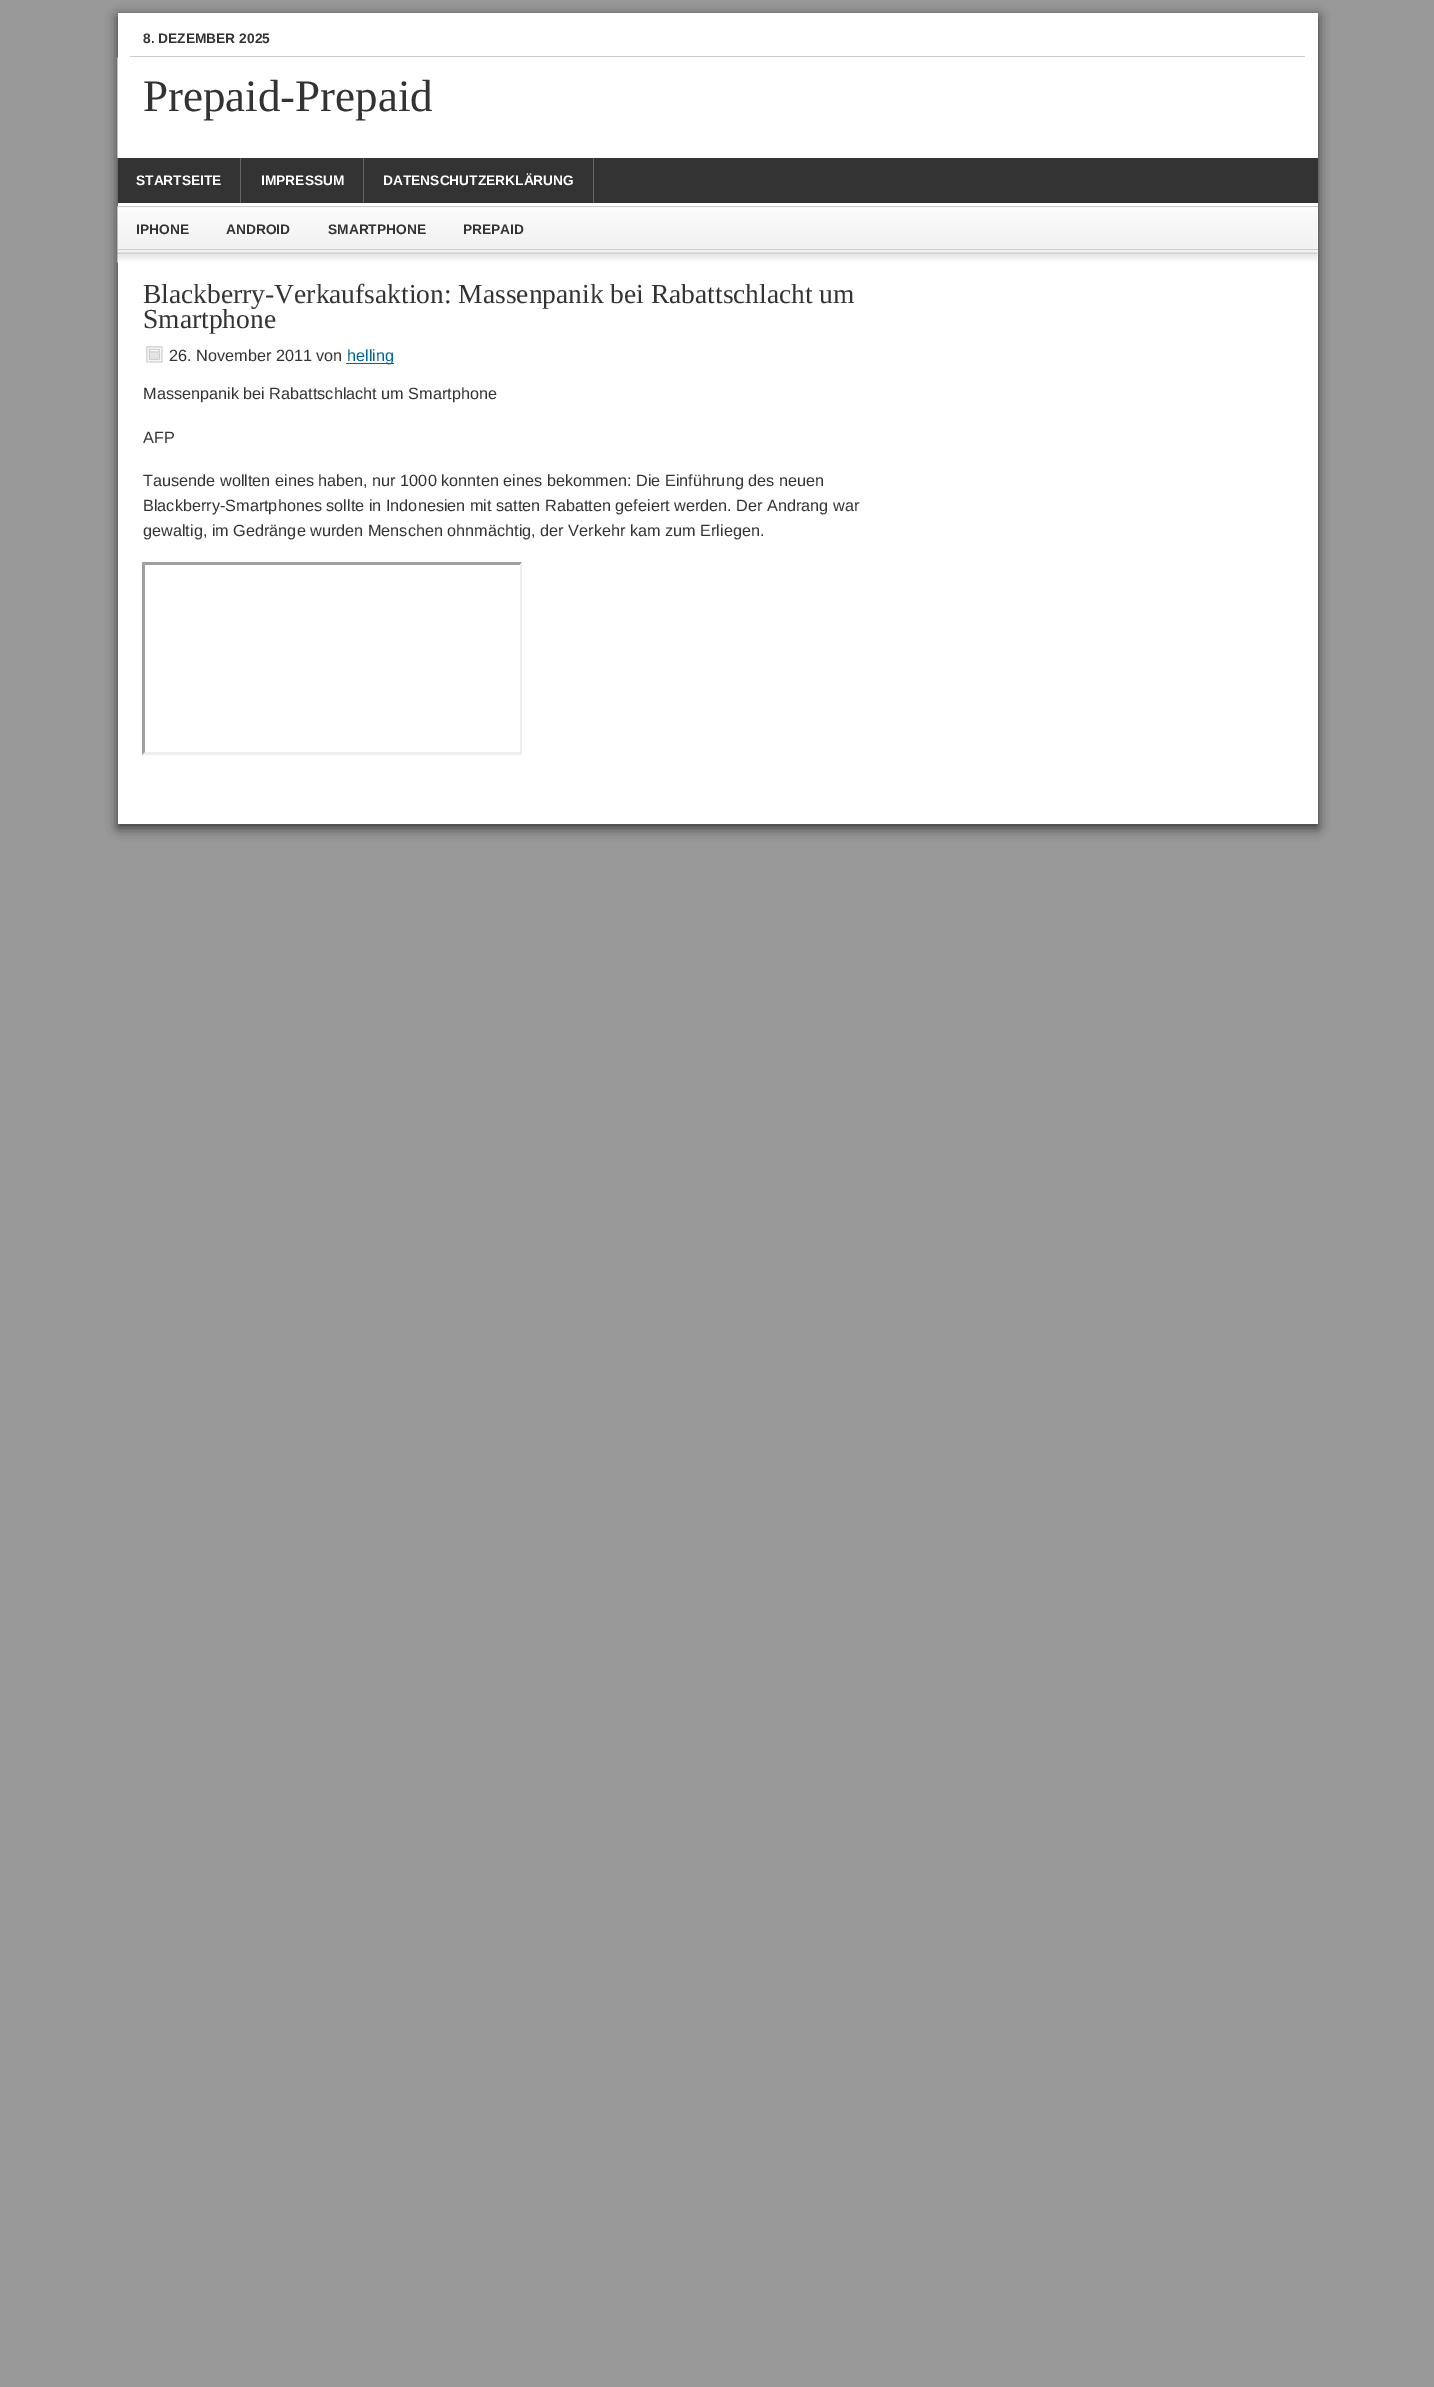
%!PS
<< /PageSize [1434 2387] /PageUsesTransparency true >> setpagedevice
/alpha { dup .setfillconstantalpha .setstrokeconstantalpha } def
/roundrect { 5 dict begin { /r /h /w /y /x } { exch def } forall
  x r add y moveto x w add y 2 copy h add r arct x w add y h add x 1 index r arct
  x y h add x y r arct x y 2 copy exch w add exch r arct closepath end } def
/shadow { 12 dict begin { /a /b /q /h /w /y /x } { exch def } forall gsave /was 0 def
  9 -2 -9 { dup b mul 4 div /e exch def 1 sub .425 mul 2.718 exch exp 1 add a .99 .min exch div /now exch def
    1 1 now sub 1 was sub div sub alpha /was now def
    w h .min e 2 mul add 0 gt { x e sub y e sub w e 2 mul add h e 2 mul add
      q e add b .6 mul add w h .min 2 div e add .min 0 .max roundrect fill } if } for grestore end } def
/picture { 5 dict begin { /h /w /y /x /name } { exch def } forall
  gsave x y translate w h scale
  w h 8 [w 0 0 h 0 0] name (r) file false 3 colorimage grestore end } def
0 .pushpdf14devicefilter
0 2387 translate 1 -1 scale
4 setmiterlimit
0.6 setgray
0 0 1434 2387 rectfill
0.2 setgray
118 16 1200 812 0 6 1 shadow
1 setgray
118 13 1200 811 rectfill
0.8 setgray
130 56 1175 1 rectfill
/LiberationSans-Bold [13.75 0 0 -13.75 0 0] selectfont
0.2 setgray
143 43 moveto (8. DEZEMBER 2025) show
(img1.rgb) 117 57 1 101 picture
/LiberationSerif-Regular [45 0 0 -45 0 0] selectfont
143 111 moveto (Prepaid-Prepaid) show
118 158 1200 45 rectfill
0.4 setgray
240 158 1 45 rectfill
/LiberationSans-Bold [13.75 0 0 -13.75 0 0] selectfont
1 setgray
136 185 moveto (STARTSEITE) show
0.4 setgray
363 158 1 45 rectfill
1 setgray
261 185 moveto (IMPRESSUM) show
0.4 setgray
593 158 1 45 rectfill
1 setgray
383 185 moveto (DATENSCHUTZERKLÄRUNG) show
(img2.rgb) 117 206 1201 44 picture
0.8 setgray
118 206 1200 1 rectfill
118 249 1200 1 rectfill
0.2 setgray
136 234 moveto (IPHONE) show
226 234 moveto (ANDROID) show
328 234 moveto (SMARTPHONE) show
463 234 moveto (PREPAID) show
(img3.rgb) 117 250 1201 13 picture
/LiberationSerif-Regular [27.5 0 0 -27.5 0 0] selectfont
143 303 moveto (Blackberry-Verkaufsaktion: Massenpanik bei Rabattschlacht um) show
143 328 moveto (Smartphone) show
(img4.rgb) 146 346 17 17 picture
/LiberationSans-Regular [16.25 0 0 -16.25 0 0] selectfont
169 361 moveto (26. November 2011 von) show
0 0.4 0.6 setrgbcolor
346 363 48 1 rectfill
347 361 moveto (helling) show
0.2 setgray
143 399 moveto (Massenpanik bei Rabattschlacht um Smartphone) show
143 443 moveto (AFP) show
143 486 moveto (Tausende wollten eines haben, nur 1000 konnten eines bekommen: Die Einführung des neuen) show
143 511 moveto (Blackberry-Smartphones sollte in Indonesien mit satten Rabatten gefeiert werden. Der Andrang war) show
143 536 moveto (gewaltig, im Gedränge wurden Menschen ohnmächtig, der Verkehr kam zum Erliegen.) show
0.624 setgray
newpath 142 562 moveto 522 562 lineto 520 565 lineto 145 565 lineto closepath fill
0.933 setgray
newpath 522 562 moveto 522 755 lineto 520 752 lineto 520 565 lineto closepath fill
newpath 522 755 moveto 142 755 lineto 145 752 lineto 520 752 lineto closepath fill
0.624 setgray
newpath 142 755 moveto 142 562 lineto 145 565 lineto 145 752 lineto closepath fill
.poppdf14devicefilter showpage
